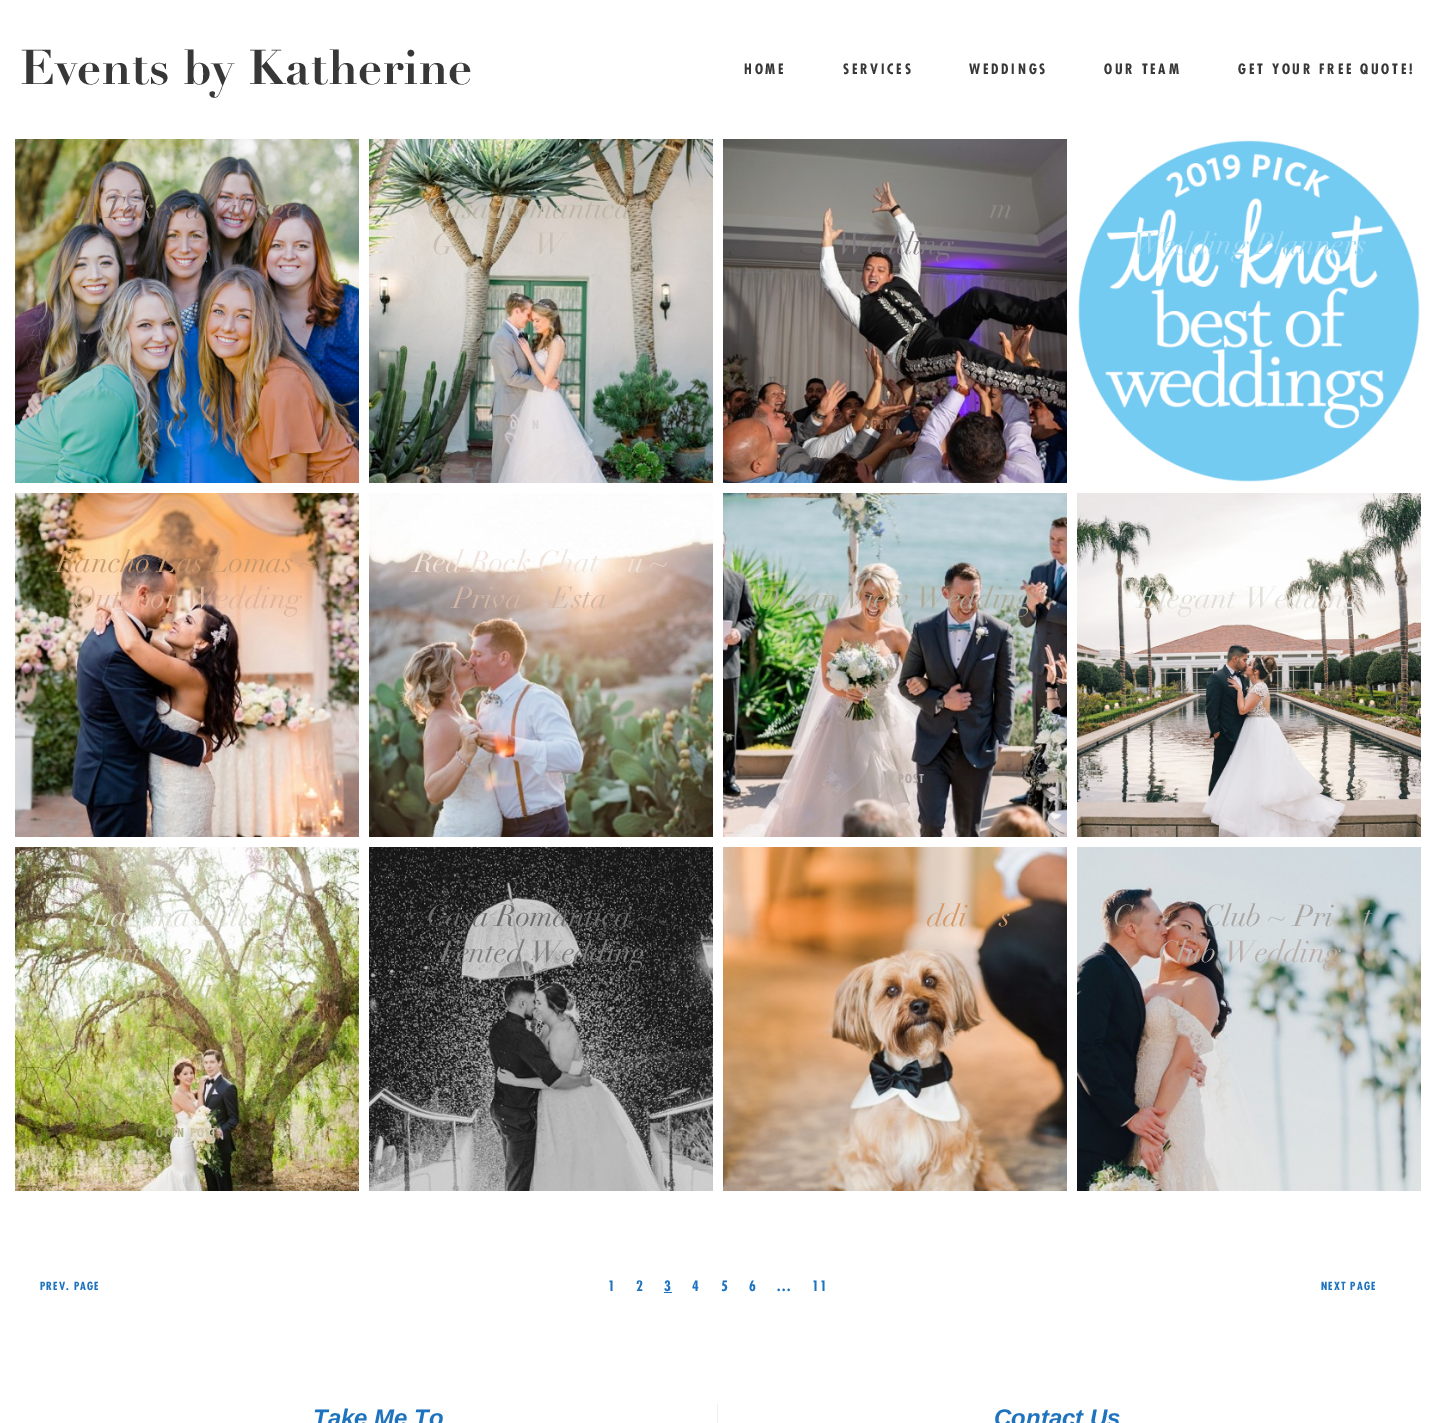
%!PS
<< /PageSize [1436 1423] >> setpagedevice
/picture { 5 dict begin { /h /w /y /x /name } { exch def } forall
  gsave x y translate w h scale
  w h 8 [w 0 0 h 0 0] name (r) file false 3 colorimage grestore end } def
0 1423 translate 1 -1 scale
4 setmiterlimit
1 setgray
0 0 1436 1423 rectfill
/Didot-Bold [48 0 0 -48 0 0] selectfont
0.216 setgray
20 84 moveto (Events by Katherine) show
/Futura-Bold [14 0 0 -14 0 0] selectfont
744 74 moveto 2.75 0 (HOME) ashow
843 74 moveto 2.75 0 (SERVICES) ashow
969 74 moveto 2.75 0 (WEDDINGS) ashow
1104 74 moveto 2.75 0 (OUR TEAM) ashow
1238 74 moveto 2.75 0 (GET YOUR FREE QUOTE!) ashow
(img1.rgb) 15 139 344 344 picture
/Didot-Italic [30 0 0 -30 0 0] selectfont
0.529 0.439 0.408 setrgbcolor
75 218 moveto (It Takes a Village) show
/Futura-Bold [12 0 0 -12 0 0] selectfont
0.196 0.384 0.576 setrgbcolor
156 429 moveto 1 0 (OPEN) ashow
(img2.rgb) 369 139 344 344 picture
/Didot-Italic [30 0 0 -30 0 0] selectfont
0.745 0.71 0.651 setrgbcolor
427 218 moveto (Casa Romantica ~) show
0.788 0.753 0.71 setrgbcolor
432 254 moveto (G) show
534 254 moveto (W) show
/Futura-Bold [12 0 0 -12 0 0] selectfont
0.839 0.816 0.824 setrgbcolor
510 429 moveto 1 0 (O) ashow
532 429 moveto 1 0 (N) ashow
(img3.rgb) 723 139 344 344 picture
/Didot-Italic [30 0 0 -30 0 0] selectfont
0.553 0.541 0.518 setrgbcolor
990 218 moveto (m) show
0.51 0.478 0.514 setrgbcolor
837 254 moveto (Wedding) show
/Futura-Bold [12 0 0 -12 0 0] selectfont
0.49 0.341 0.267 setrgbcolor
864 429 moveto 1 0 (OPEN) ashow
0.129 0.11 0.133 setrgbcolor
919 429 moveto 1 0 (T) ashow
(img4.rgb) 1078 140 342 342 picture
/Didot-Italic [30 0 0 -30 0 0] selectfont
0.612 0.855 0.965 setrgbcolor
1132 254 moveto (Wedding Planners) show
(img5.rgb) 15 493 344 344 picture
0.792 0.604 0.435 setrgbcolor
56 572 moveto (Rancho Las Lomas ~) show
0.882 0.702 0.6 setrgbcolor
73 608 moveto (Outdoor Wedding) show
(img6.rgb) 369 493 344 344 picture
0.941 0.894 0.863 setrgbcolor
414 572 moveto (Red Rock Chat) show
628 572 moveto (u ~) show
0.824 0.718 0.655 setrgbcolor
453 608 moveto (Priva) show
551 608 moveto (Esta) show
/Futura-Bold [12 0 0 -12 0 0] selectfont
0.694 0.682 0.71 setrgbcolor
559 783 moveto 1 0 (ST) ashow
(img7.rgb) 723 493 344 344 picture
/Didot-Italic [30 0 0 -30 0 0] selectfont
0.675 0.675 0.6 setrgbcolor
757 608 moveto (Ocean View Wedding) show
/Futura-Bold [12 0 0 -12 0 0] selectfont
0.69 0.651 0.643 setrgbcolor
898 783 moveto 1 0 (POST) ashow
(img8.rgb) 1077 493 344 344 picture
/Didot-Italic [30 0 0 -30 0 0] selectfont
0.878 0.875 0.851 setrgbcolor
1138 608 moveto (Elegant Wedding) show
(img9.rgb) 15 847 344 344 picture
0.867 0.871 0.816 setrgbcolor
92 926 moveto (Laguna Hills ~) show
0.8 0.792 0.675 setrgbcolor
101 962 moveto (Private Home) show
0.741 0.745 0.537 setrgbcolor
129 998 moveto (Wedding) show
/Futura-Bold [12 0 0 -12 0 0] selectfont
0.678 0.69 0.502 setrgbcolor
156 1137 moveto 1 0 (OPEN) ashow
0.8 0.769 0.675 setrgbcolor
190 1137 moveto 1 0 (POST) ashow
(img10.rgb) 369 847 344 344 picture
/Didot-Italic [30 0 0 -30 0 0] selectfont
0.427 setgray
427 926 moveto (Casa Romantica ~) show
0.486 setgray
436 962 moveto (Tented Wedding) show
(img11.rgb) 723 847 344 344 picture
0.843 0.6 0.396 setrgbcolor
927 926 moveto (ddi) show
1000 926 moveto (s) show
(img12.rgb) 1077 847 344 344 picture
0.663 0.651 0.635 setrgbcolor
1113 926 moveto (C) show
1203 926 moveto (Club ~ Pri) show
1363 926 moveto (t) show
0.725 0.682 0.667 setrgbcolor
1158 962 moveto (Club Wedding) show
/Futura-Bold [11 0 0 -11 0 0] selectfont
0.118 0.451 0.745 setrgbcolor
40 1290 moveto 1.1 0 (PREV. PAGE) ashow
/Futura-Bold [14 0 0 -14 0 0] selectfont
608 1291 moveto 1.5 0 (1) ashow
636 1291 moveto 1.5 0 (2) ashow
664 1291 moveto 1.5 0 (3) ashow
664 1292 8 1 rectfill
692 1291 moveto 1.5 0 (4) ashow
721 1291 moveto 1.5 0 (5) ashow
749 1291 moveto 1.5 0 (6) ashow
777 1291 moveto 1.5 0 (...) ashow
812 1291 moveto 1.5 0 (11) ashow
/Futura-Bold [11 0 0 -11 0 0] selectfont
1321 1290 moveto 1.1 0 (NEXT PAGE) ashow
0.937 setgray
717 1404 1 19 rectfill
/LiberationSans-BoldItalic [24 0 0 -24 0 0] selectfont
0.118 0.451 0.745 setrgbcolor
313 1426 moveto (Take Me To) show
994 1426 moveto (Contact Us) show
showpage
